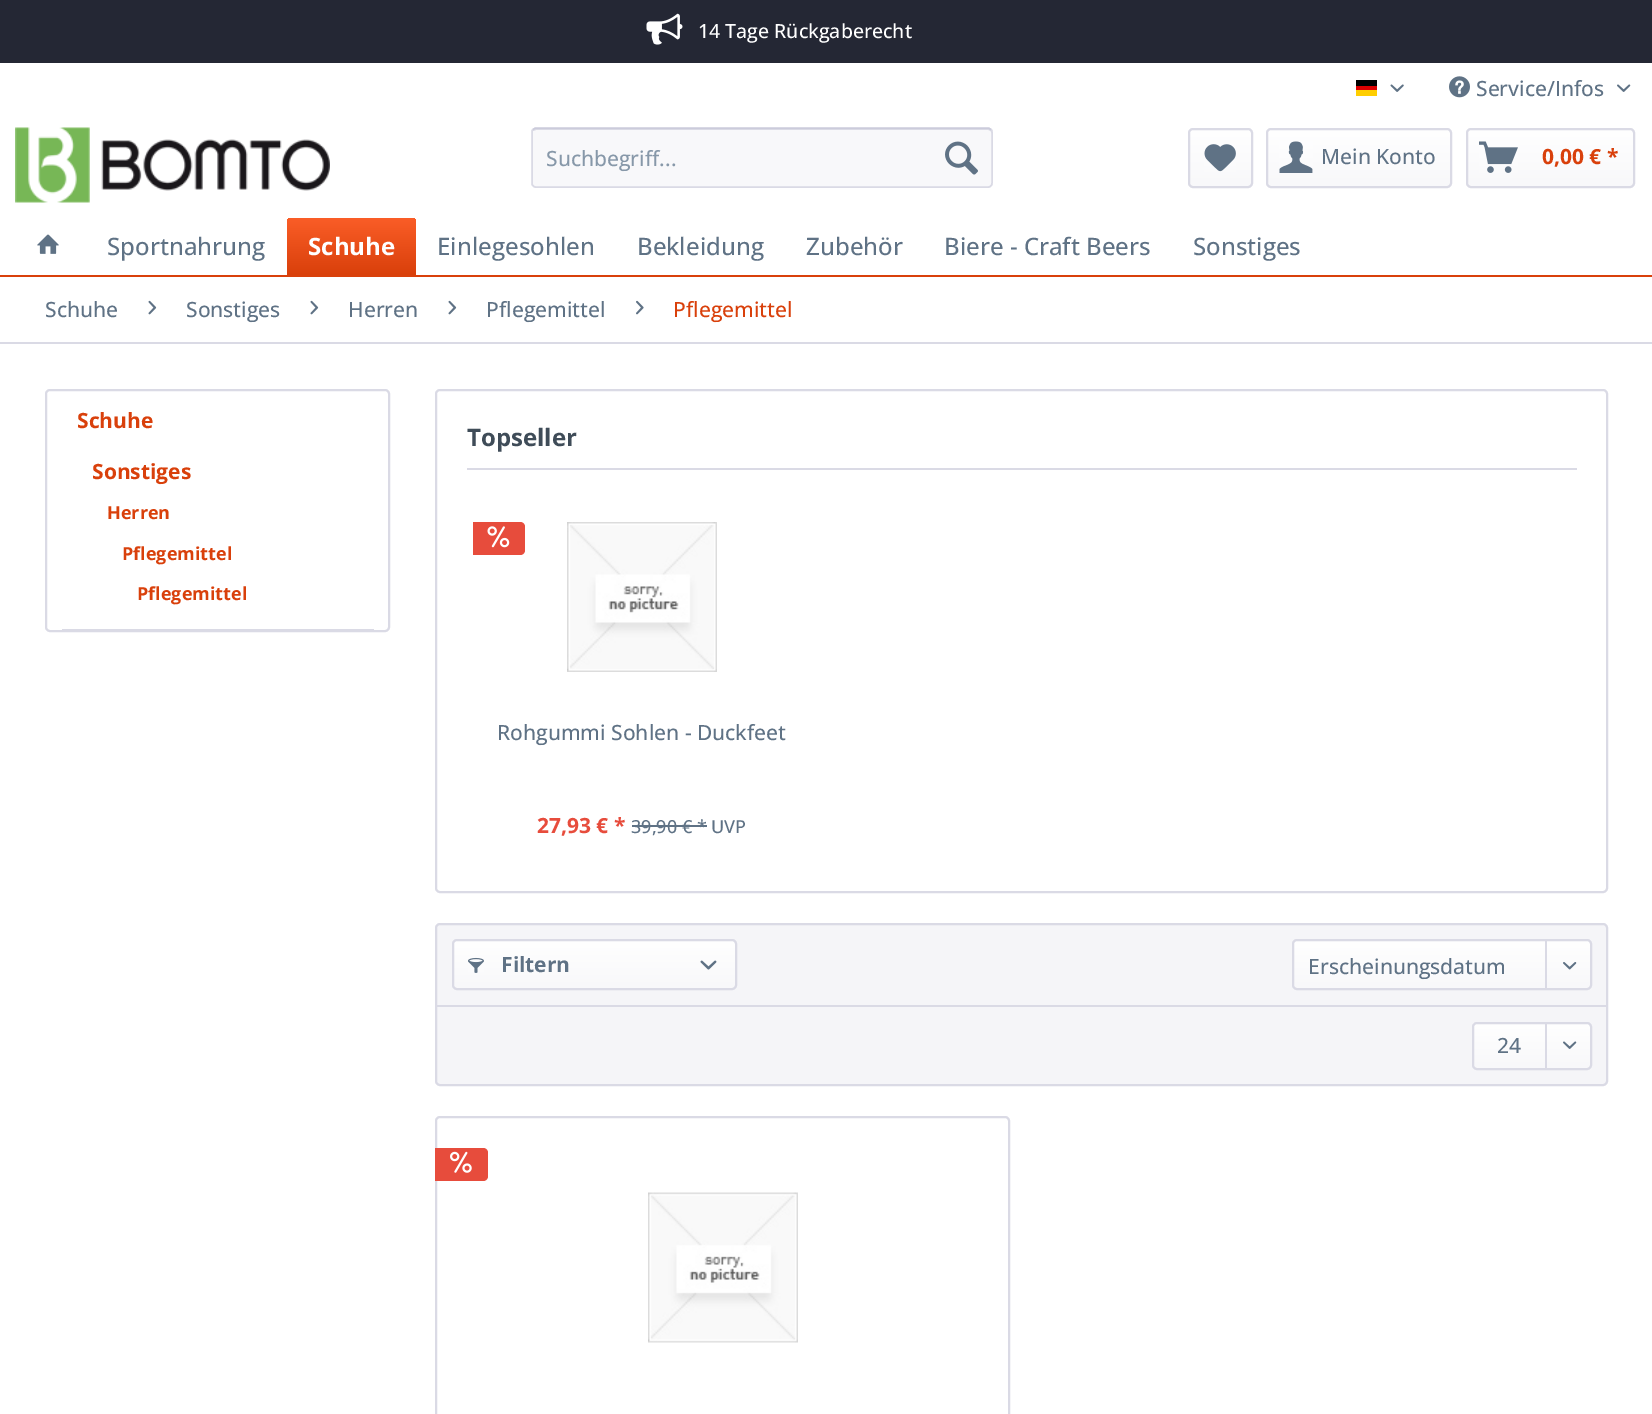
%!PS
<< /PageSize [1652 1414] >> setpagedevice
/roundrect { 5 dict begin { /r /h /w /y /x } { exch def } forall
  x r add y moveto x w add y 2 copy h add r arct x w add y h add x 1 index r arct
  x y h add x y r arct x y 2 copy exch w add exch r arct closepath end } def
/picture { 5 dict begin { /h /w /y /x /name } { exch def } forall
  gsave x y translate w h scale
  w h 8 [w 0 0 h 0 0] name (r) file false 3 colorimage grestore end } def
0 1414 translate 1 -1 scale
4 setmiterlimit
1 setgray
0 0 1652 1414 rectfill
0.141 0.153 0.204 setrgbcolor
0 0 1652 63 rectfill
(img1.rgb) 646 13 37 32 picture
/OpenSans-Medium [19.5 0 0 -19.5 0 0] selectfont
1 setgray
698 38 moveto (14 Tage Rückgaberecht) show
0 setgray
1356 80 21 6 rectfill
0.867 0 0 setrgbcolor
1356 86 21 4 rectfill
1 0.808 0 setrgbcolor
1356 90 21 6 rectfill
(img2.rgb) 1390 84 14 8 picture
(img3.rgb) 1449 76 21 22 picture
/OpenSans-Medium [21 0 0 -21 0 0] selectfont
0.373 0.447 0.522 setrgbcolor
1476 96 moveto (Service/Infos) show
(img4.rgb) 1617 84 14 8 picture
(img5.rgb) 15 127 315 76 picture
0.973 0.973 0.98 setrgbcolor
531 128 462 60 5 roundrect fill
0.855 0.855 0.898 setrgbcolor
newpath 536 130 moveto 988 130 lineto 990 130 992 132 992 134 curveto 992 132 lineto 992 130 991 129 989 129 curveto 536 129 lineto 535 129 533 130 533 131 curveto closepath fill
0.796 0.796 0.859 setrgbcolor
1.5 setlinewidth
newpath 533 129.5 moveto 535.5 128 lineto 988.5 128 lineto 991 129.5 lineto stroke
0.855 0.855 0.898 setrgbcolor
newpath 991 129.5 moveto 992 130 992 131 992 132 curveto 992 183 lineto 992 184 992 185 991 185.5 curveto 990.5 186.5 989.5 187 988.5 187 curveto 535.5 187 lineto 534.5 187 533.5 186.5 533 185.5 curveto 532 185 532 184 532 183 curveto 532 132 lineto 532 131 532 130 533 129.5 curveto stroke
0.529 0.596 0.663 setrgbcolor
546 166 moveto (Suchbegriff...) show
(img6.rgb) 945 141 33 34 picture
gsave 1190 129 61 57 3 roundrect clip newpath
<< /ShadingType 2 /ColorSpace /DeviceRGB /Coords [1220 129 1220 186] /Extend [true true] /Function << /FunctionType 2 /Domain [0 1] /C0 [1 1 1] /C1 [0.973 0.973 0.98] /N 1 >> >> shfill grestore
0.855 0.855 0.898 setrgbcolor
2 setlinewidth
1189 129 63 58 4 roundrect stroke
(img7.rgb) 1204 144 32 28 picture
gsave 1268 129 183 57 3 roundrect clip newpath
<< /ShadingType 2 /ColorSpace /DeviceRGB /Coords [1359 129 1359 186] /Extend [true true] /Function << /FunctionType 2 /Domain [0 1] /C0 [1 1 1] /C1 [0.973 0.973 0.98] /N 1 >> >> shfill grestore
1267 129 184 58 4 roundrect stroke
(img8.rgb) 1279 141 34 32 picture
0.373 0.447 0.522 setrgbcolor
1321 164 moveto (Mein Konto) show
gsave 1467 129 167 57 3 roundrect clip newpath
<< /ShadingType 2 /ColorSpace /DeviceRGB /Coords [1550 129 1550 186] /Extend [true true] /Function << /FunctionType 2 /Domain [0 1] /C0 [1 1 1] /C1 [0.973 0.973 0.98] /N 1 >> >> shfill grestore
0.855 0.855 0.898 setrgbcolor
1467 129 167 58 4 roundrect stroke
(img9.rgb) 1479 141 39 32 picture
/OpenSans-Bold [21 0 0 -21 0 0] selectfont
0.851 0.251 0.043 setrgbcolor
1542 164 moveto (0,00 € *) show
0 275 1652 2 rectfill
(img10.rgb) 37 234 22 20 picture
/OpenSans-Medium [24 0 0 -24 0 0] selectfont
0.373 0.447 0.522 setrgbcolor
107 255 moveto (Sportnahrung) show
gsave newpath 292 218 moveto 411 218 lineto 414 218 416 220 416 223 curveto 416 275 lineto 287 275 lineto 287 223 lineto 287 220 289 218 292 218 curveto closepath clip newpath
<< /ShadingType 2 /ColorSpace /DeviceRGB /Coords [351 218 351 275] /Extend [true true] /Function << /FunctionType 2 /Domain [0 1] /C0 [0.98 0.365 0.153] /C1 [0.851 0.251 0.043] /N 1 >> >> shfill grestore
/OpenSans-Bold [24 0 0 -24 0 0] selectfont
1 setgray
308 255 moveto (Schuhe) show
/OpenSans-Medium [24 0 0 -24 0 0] selectfont
0.373 0.447 0.522 setrgbcolor
437 255 moveto (Einlegesohlen) show
637 255 moveto (Bekleidung) show
806 255 moveto (Zubehör) show
944 255 moveto (Biere - Craft Beers) show
1193 255 moveto (Sonstiges) show
0.855 0.855 0.898 setrgbcolor
0 342 1652 2 rectfill
/OpenSans-Medium [21 0 0 -21 0 0] selectfont
0.373 0.447 0.522 setrgbcolor
45 317 moveto (Schuhe) show
(img11.rgb) 148 300 9 15 picture
186 317 moveto (Sonstiges) show
(img11.rgb) 310 300 9 15 picture
348 317 moveto (Herren) show
(img11.rgb) 448 300 9 15 picture
486 317 moveto (Pflegemittel) show
(img12.rgb) 636 300 8 15 picture
0.851 0.251 0.043 setrgbcolor
673 317 moveto (Pflegemittel) show
0.855 0.855 0.898 setrgbcolor
46 390 343 241 4 roundrect stroke
62 629 312 1 rectfill
/OpenSans-Bold [21 0 0 -21 0 0] selectfont
0.851 0.251 0.043 setrgbcolor
77 428 moveto (Schuhe) show
92 479 moveto (Sonstiges) show
/OpenSans-Bold [18 0 0 -18 0 0] selectfont
107 519 moveto (Herren) show
122 560 moveto (Pflegemittel) show
137 600 moveto (Pflegemittel) show
0.855 0.855 0.898 setrgbcolor
436 390 1171 502 4 roundrect stroke
467 468 1110 2 rectfill
/OpenSans-Bold [24 0 0 -24 0 0] selectfont
0.247 0.298 0.345 setrgbcolor
467 446 moveto (Topseller) show
0.906 0.298 0.235 setrgbcolor
newpath 473 522 moveto 520 522 lineto 523 522 525 524 525 527 curveto 525 550 lineto 525 553 523 555 520 555 curveto 473 555 lineto closepath fill
(img13.rgb) 487 526 23 22 picture
(img14.rgb) 567 522 150 150 picture
/OpenSans-Medium [21 0 0 -21 0 0] selectfont
0.373 0.447 0.522 setrgbcolor
497 740 moveto (Rohgummi Sohlen - Duckfeet) show
/OpenSans-Bold [21 0 0 -21 0 0] selectfont
0.906 0.298 0.235 setrgbcolor
537 833 moveto (27,93 € *) show
/OpenSans-Medium [18 0 0 -18 0 0] selectfont
0.373 0.447 0.522 setrgbcolor
631 833 moveto (39,90 € * UVP) show
632 825 75 2 rectfill
0.961 0.961 0.973 setrgbcolor
436 924 1171 161 4 roundrect gsave fill grestore
0.855 0.855 0.898 setrgbcolor
stroke
gsave 453 941 282 48 3 roundrect clip newpath
<< /ShadingType 2 /ColorSpace /DeviceRGB /Coords [594 941 594 989] /Extend [true true] /Function << /FunctionType 2 /Domain [0 1] /C0 [1 1 1] /C1 [0.973 0.973 0.98] /N 1 >> >> shfill grestore
453 940 283 49 4 roundrect stroke
(img15.rgb) 468 957 16 16 picture
/OpenSans-Bold [21 0 0 -21 0 0] selectfont
0.373 0.447 0.522 setrgbcolor
501 972 moveto (Filtern) show
(img16.rgb) 700 960 17 10 picture
gsave 1293 941 297 48 3 roundrect clip newpath
<< /ShadingType 2 /ColorSpace /DeviceRGB /Coords [1442 941 1442 989] /Extend [true true] /Function << /FunctionType 2 /Domain [0 1] /C0 [1 1 1] /C1 [0.973 0.973 0.98] /N 1 >> >> shfill grestore
0.855 0.855 0.898 setrgbcolor
1293 940 298 49 4 roundrect stroke
/OpenSans-Medium [21 0 0 -21 0 0] selectfont
0.373 0.447 0.522 setrgbcolor
1308 974 moveto (Erscheinungsdatum) show
0.855 0.855 0.898 setrgbcolor
1545 941 2 49 rectfill
(img17.rgb) 1563 962 14 8 picture
437 1005 1170 2 rectfill
gsave 1473 1023 117 45 3 roundrect clip newpath
<< /ShadingType 2 /ColorSpace /DeviceRGB /Coords [1532 1023 1532 1068] /Extend [true true] /Function << /FunctionType 2 /Domain [0 1] /C0 [1 1 1] /C1 [0.973 0.973 0.98] /N 1 >> >> shfill grestore
1473 1023 118 46 4 roundrect stroke
0.373 0.447 0.522 setrgbcolor
1497 1053 moveto (24) show
0.855 0.855 0.898 setrgbcolor
1545 1023 2 47 rectfill
(img18.rgb) 1563 1041 14 8 picture
436 1117 573 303 4 roundrect stroke
0.906 0.298 0.235 setrgbcolor
newpath 435 1148 moveto 483 1148 lineto 486 1148 488 1150 488 1153 curveto 488 1176 lineto 488 1179 486 1181 483 1181 curveto 435 1181 lineto closepath fill
(img19.rgb) 450 1151 22 22 picture
(img20.rgb) 648 1192 150 151 picture
showpage
